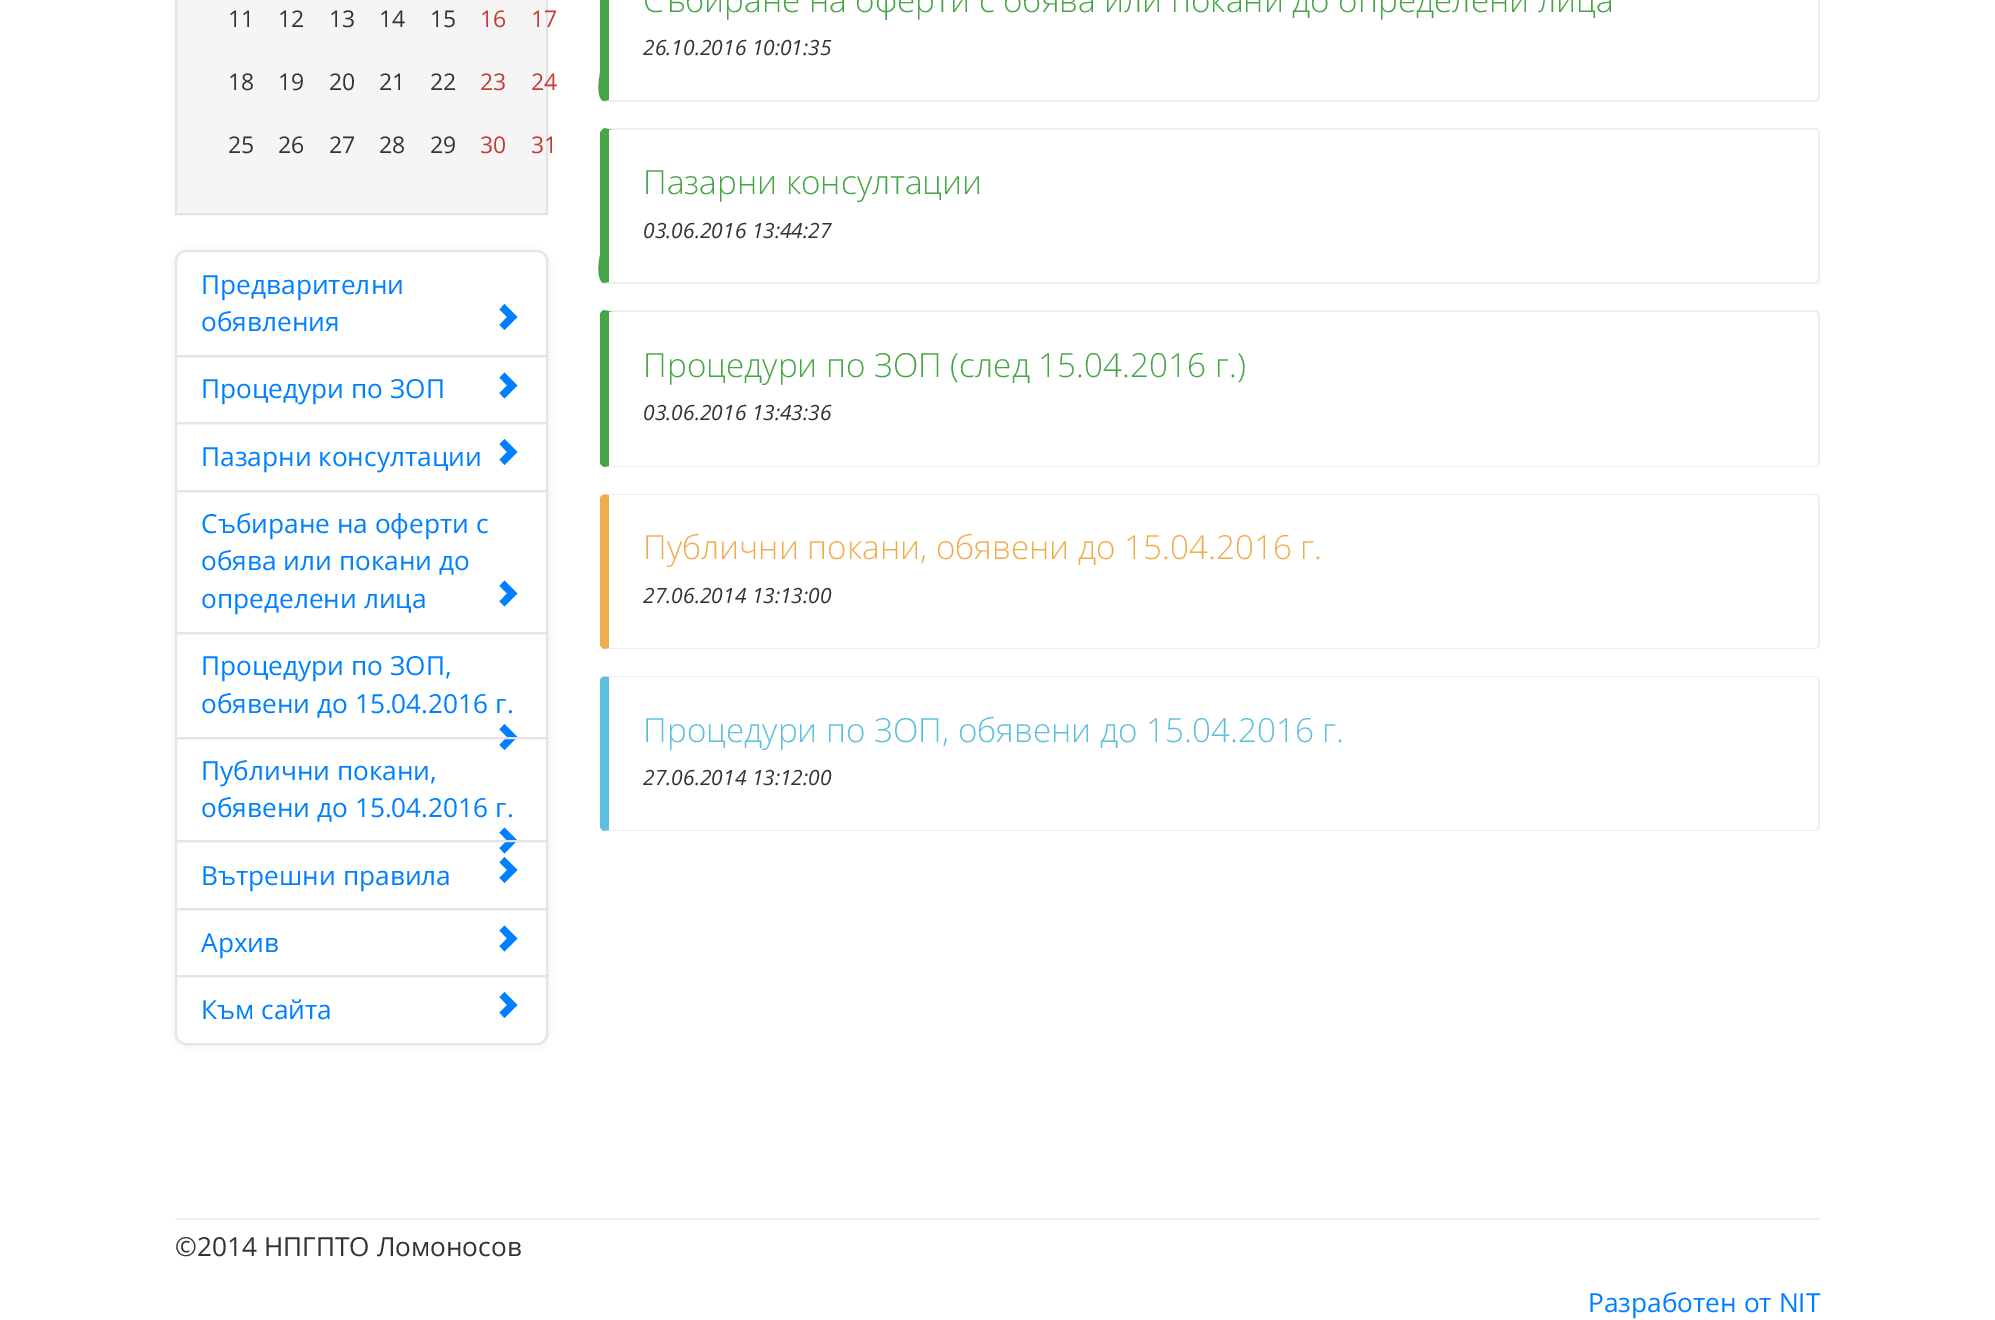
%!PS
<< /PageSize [1995 1320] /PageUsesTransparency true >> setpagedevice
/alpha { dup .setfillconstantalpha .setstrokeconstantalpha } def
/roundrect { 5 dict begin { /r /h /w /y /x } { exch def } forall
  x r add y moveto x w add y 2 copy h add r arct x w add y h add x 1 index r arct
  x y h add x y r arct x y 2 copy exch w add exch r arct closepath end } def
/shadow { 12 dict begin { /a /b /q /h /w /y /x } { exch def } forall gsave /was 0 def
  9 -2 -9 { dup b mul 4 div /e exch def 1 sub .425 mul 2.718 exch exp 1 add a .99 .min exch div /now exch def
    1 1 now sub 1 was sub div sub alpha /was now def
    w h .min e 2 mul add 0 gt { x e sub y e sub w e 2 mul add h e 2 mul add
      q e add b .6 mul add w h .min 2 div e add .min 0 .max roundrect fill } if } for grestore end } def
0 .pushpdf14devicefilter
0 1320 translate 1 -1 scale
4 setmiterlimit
1 setgray
0 0 1995 1320 rectfill
0.961 setgray
newpath 176 -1 moveto 547 -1 lineto 547 214 lineto 176 214 lineto closepath gsave fill grestore
0.89 setgray
2 setlinewidth
stroke
/OpenSans-Regular [23 0 0 -23 0 0] selectfont
0.2 setgray
228 27 moveto (11) show
278 27 moveto (12) show
329 27 moveto (13) show
379 27 moveto (14) show
430 27 moveto (15) show
0.769 0.235 0.208 setrgbcolor
480 27 moveto (16) show
531 27 moveto (17) show
0.2 setgray
228 90 moveto (18) show
278 90 moveto (19) show
329 90 moveto (20) show
379 90 moveto (21) show
430 90 moveto (22) show
0.769 0.235 0.208 setrgbcolor
480 90 moveto (23) show
531 90 moveto (24) show
0.2 setgray
228 153 moveto (25) show
278 153 moveto (26) show
329 153 moveto (27) show
379 153 moveto (28) show
430 153 moveto (29) show
0.769 0.235 0.208 setrgbcolor
480 153 moveto (30) show
531 153 moveto (31) show
0 setgray
175 252 373 793 11 3.5 0.07 shadow
1 setgray
175 250 373 793 11 roundrect fill
0.898 setgray
newpath 186 251 moveto 537 251 lineto 542.5 251 547 255.5 547 261 curveto 547 356 lineto 176 356 lineto 176 261 lineto 176 255.5 180.5 251 186 251 curveto closepath stroke
/OpenSans-Regular [26.25 0 0 -26.25 0 0] selectfont
0 0.498 1 setrgbcolor
201 294 moveto (Предварителни) show
201 331 moveto (обявления) show
newpath 499.5 325 moveto 507 317 lineto 499.5 309.5 lineto 504.5 304 lineto 517.5 317 lineto 504.5 330 lineto closepath fill
0.898 setgray
176 356 371 67 rectstroke
0 0.498 1 setrgbcolor
201 398 moveto (Процедури по ЗОП) show
newpath 499.5 393 moveto 507 385.5 lineto 499.5 377.5 lineto 504.5 372.5 lineto 517.5 385.5 lineto 504.5 398.5 lineto closepath fill
0.898 setgray
176 423 371 68 rectstroke
0 0.498 1 setrgbcolor
201 466 moveto (Пазарни консултации) show
newpath 499.5 459.5 moveto 507 452 lineto 499.5 444 lineto 504.5 439 lineto 517.5 452 lineto 504.5 465 lineto closepath fill
0.898 setgray
176 491 371 142 rectstroke
0 0.498 1 setrgbcolor
201 533 moveto (Събиране на оферти с) show
201 570 moveto (обява или покани до) show
201 608 moveto (определени лица) show
newpath 499.5 601.5 moveto 507 593.5 lineto 499.5 586 lineto 504.5 580.5 lineto 517.5 593.5 lineto 504.5 606.5 lineto closepath fill
0.898 setgray
176 633 371 105 rectstroke
0 0.498 1 setrgbcolor
201 675 moveto (Процедури по ЗОП,) show
201 713 moveto (обявени до 15.04.2016 г.) show
newpath 499.5 745 moveto 507 737 lineto 499.5 729.5 lineto 504.5 724 lineto 517.5 737 lineto 504.5 750 lineto closepath fill
0.898 setgray
176 738 371 103 rectstroke
0 0.498 1 setrgbcolor
201 780 moveto (Публични покани,) show
201 817 moveto (обявени до 15.04.2016 г.) show
newpath 499.5 848 moveto 507 840.5 lineto 499.5 832.5 lineto 504.5 827.5 lineto 517.5 840.5 lineto 504.5 853.5 lineto closepath fill
0.898 setgray
176 841 371 68 rectstroke
0 0.498 1 setrgbcolor
201 885 moveto (Вътрешни правила) show
newpath 499.5 878 moveto 507 870 lineto 499.5 862.5 lineto 504.5 857 lineto 517.5 870 lineto 504.5 883 lineto closepath fill
0.898 setgray
176 909 371 67 rectstroke
0 0.498 1 setrgbcolor
201 952 moveto (Архив) show
newpath 499.5 946 moveto 507 938.5 lineto 499.5 930.5 lineto 504.5 925.5 lineto 517.5 938.5 lineto 504.5 951.5 lineto closepath fill
0.898 setgray
newpath 176 976 moveto 547 976 lineto 547 1034 lineto 547 1039.5 542.5 1044 537 1044 curveto 186 1044 lineto 180.5 1044 176 1039.5 176 1034 curveto closepath stroke
0 0.498 1 setrgbcolor
201 1019 moveto (Към сайта) show
newpath 499.5 1012.5 moveto 507 1005 lineto 499.5 997 lineto 504.5 992 lineto 517.5 1005 lineto 504.5 1018 lineto closepath fill
0.933 setgray
newpath 1818 -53 moveto 1819 -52 1820 -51 1820 -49 curveto 1820 96 lineto 1820 98 1820 99 1819 100 curveto 1817 99 lineto 1818 96 lineto 1818 -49 lineto 1818 -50 1818 -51 1817 -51 curveto closepath fill
newpath 604 102 moveto 603 101 lineto 609 100 lineto 1815 100 lineto 1817 99 lineto 1819 100 lineto 1817 102 lineto closepath fill
0.275 0.647 0.275 setrgbcolor
newpath 609 -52 moveto 609 100 lineto 603 101 lineto 595 96 600 73 600 73 curveto 600 -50 lineto 601 -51 lineto 604 -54 lineto 612 -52 lineto closepath fill
/OpenSans-Light [33.25 0 0 -33.25 0 0] selectfont
643 12 moveto (Събиране на оферти с обява или покани до определени лица) show
/OpenSans-Italic [21 0 0 -21 0 0] selectfont
0.2 setgray
643 55 moveto (26.10.2016 10:01:35) show
0.933 setgray
newpath 606 128 moveto 604 128 lineto 612 130 lineto 1815 130 lineto 1817 131 lineto 1818 129 lineto 1818 128 1816 128 1815 128 curveto closepath fill
newpath 1818 129 moveto 1819 130 1820 131 1820 133 curveto 1820 278 lineto 1820 280 1820 281 1819 282 curveto 1817 281 lineto 1818 278 lineto 1818 133 lineto 1818 132 1818 131 1817 131 curveto closepath fill
newpath 604 284 moveto 603 283 lineto 609 282 lineto 1815 282 lineto 1817 281 lineto 1819 282 lineto 1817 284 lineto closepath fill
0.275 0.647 0.275 setrgbcolor
newpath 609 130 moveto 609 282 lineto 603 283 lineto 595 278 600 255 600 255 curveto 600 132 lineto 601 131 lineto 604 128 lineto 612 130 lineto closepath fill
/OpenSans-Light [33.25 0 0 -33.25 0 0] selectfont
643 194 moveto (Пазарни консултации) show
/OpenSans-Italic [21 0 0 -21 0 0] selectfont
0.2 setgray
643 238 moveto (03.06.2016 13:44:27) show
0.933 setgray
newpath 606 310 moveto 604 310 lineto 612 312 lineto 1815 312 lineto 1817 313 lineto 1818 311 lineto 1818 310 1816 310 1815 310 curveto closepath fill
newpath 1818 311 moveto 1819 312 1820 313 1820 315 curveto 1820 462 lineto 1820 464 1819 465 1818 466 curveto 1817 465 lineto 1818 462 lineto 1818 315 lineto 1817 313 lineto closepath fill
newpath 1818 466 moveto 1818 467 1816 467 1815 467 curveto 606 467 lineto 604 467 lineto 609 466 lineto 1815 466 lineto 1816 466 1817 465 1817 465 curveto closepath fill
0.275 0.647 0.275 setrgbcolor
newpath 609 312 moveto 609 466 lineto 604 467 lineto 602 466 601 465 600 463 curveto 600 314 lineto 601 312 602 311 604 310 curveto 612 312 lineto closepath fill
/OpenSans-Light [33.25 0 0 -33.25 0 0] selectfont
643 377 moveto (Процедури по ЗОП \(след 15.04.2016 г.\)) show
/OpenSans-Italic [21 0 0 -21 0 0] selectfont
0.2 setgray
643 420 moveto (03.06.2016 13:43:36) show
0.933 setgray
newpath 606 494 moveto 604 494 lineto 609 495 lineto 1815 495 lineto 1817 496 lineto 1818 495 lineto 1815 494 lineto closepath fill
newpath 1820 644 moveto 1820 499 lineto 1820 497 1819 496 1818 495 curveto 1817 496 lineto 1818 499 lineto 1818 644 lineto 1817 647 lineto 1818 648 lineto 1819 647 1820 646 1820 644 curveto closepath fill
newpath 1818 648 moveto 1818 649 1816 649 1815 649 curveto 606 649 lineto 604 649 lineto 609 648 lineto 1815 648 lineto 1816 648 1817 647 1817 647 curveto closepath fill
0.941 0.678 0.306 setrgbcolor
newpath 600 498 moveto 602 493 606 495 609 495 curveto 609 648 lineto 604 649 lineto 602 648 601 647 600 645 curveto closepath fill
/OpenSans-Light [33.25 0 0 -33.25 0 0] selectfont
643 559 moveto (Публични покани, обявени до 15.04.2016 г.) show
/OpenSans-Italic [21 0 0 -21 0 0] selectfont
0.2 setgray
643 603 moveto (27.06.2014 13:13:00) show
0.933 setgray
newpath 606 676 moveto 604 676 lineto 609 677 lineto 1815 677 lineto 1817 678 lineto 1818 677 lineto 1815 676 lineto closepath fill
newpath 1820 826 moveto 1820 681 lineto 1820 679 1819 678 1818 677 curveto 1817 678 lineto 1818 681 lineto 1818 826 lineto 1817 829 lineto 1818 830 lineto 1819 829 1820 828 1820 826 curveto closepath fill
newpath 1818 830 moveto 1818 831 1816 831 1815 831 curveto 606 831 lineto 604 831 lineto 609 830 lineto 1815 830 lineto 1816 830 1817 829 1817 829 curveto closepath fill
0.357 0.753 0.871 setrgbcolor
newpath 600 680 moveto 602 675 606 677 609 677 curveto 609 830 lineto 604 831 lineto 602 830 601 829 600 827 curveto closepath fill
/OpenSans-Light [33.25 0 0 -33.25 0 0] selectfont
643 742 moveto (Процедури по ЗОП, обявени до 15.04.2016 г.) show
/OpenSans-Italic [21 0 0 -21 0 0] selectfont
0.2 setgray
643 785 moveto (27.06.2014 13:12:00) show
0.937 setgray
175 1218 1645 2 rectfill
/OpenSans-Regular [26.25 0 0 -26.25 0 0] selectfont
0.2 setgray
175 1256 moveto (©2014 НПГПТО Ломоносов) show
0 0.498 1 setrgbcolor
1588 1312 moveto (Разработен от NIT) show
.poppdf14devicefilter showpage
